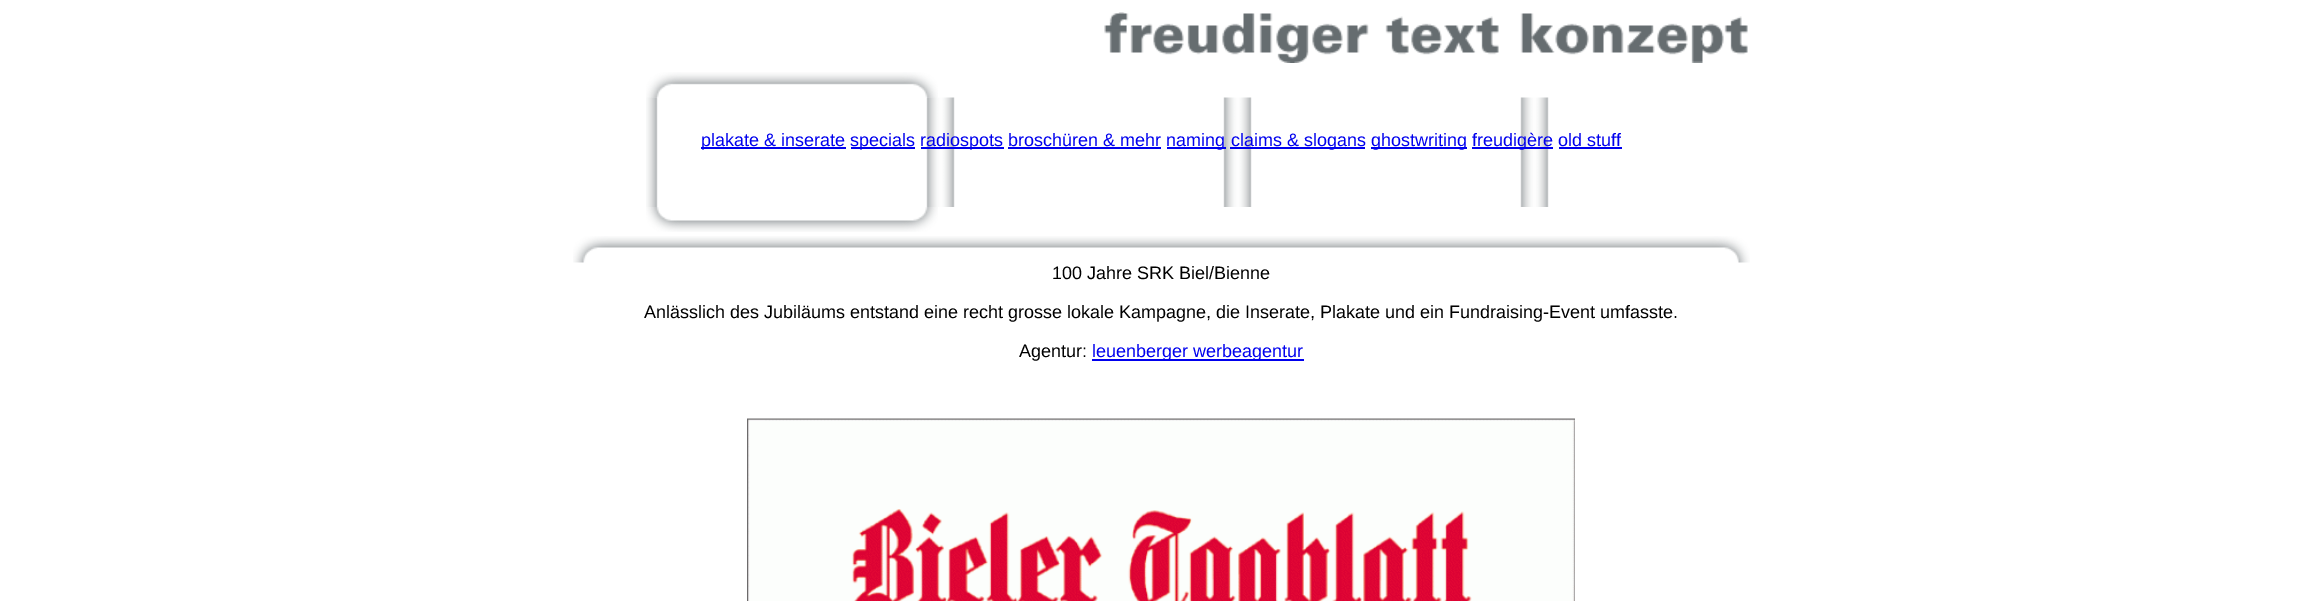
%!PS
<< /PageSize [2322 601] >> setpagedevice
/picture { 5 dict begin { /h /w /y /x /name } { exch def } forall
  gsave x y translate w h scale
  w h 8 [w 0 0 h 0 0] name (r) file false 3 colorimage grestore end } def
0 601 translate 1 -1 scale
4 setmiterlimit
1 setgray
0 0 2322 601 rectfill
(img1.rgb) 1104 12 644 51 picture
(img3.rgb) 646 97 903 110 picture
(img2.rgb) 646 72 292 26 picture
0 0 0.933 setrgbcolor
701 147 145 2 rectfill
/LiberationSans-Regular [18 0 0 -18 0 0] selectfont
701 146 moveto (plakate & inserate) show
851 147 64 2 rectfill
850 146 moveto (specials) show
921 147 83 2 rectfill
920 146 moveto (radiospots broschüren & mehr) show
1167 147 59 2 rectfill
1166 146 moveto (naming) show
1230 147 135 2 rectfill
1231 146 moveto (claims & slogans) show
1371 147 96 2 rectfill
1371 146 moveto (ghostwriting) show
1472 147 81 2 rectfill
1472 146 moveto (freudigère old stuff) show
1008 147 153 2 rectfill
1559 147 63 2 rectfill
(img4.rgb) 646 207 292 25 picture
(img5.rgb) 573 236 1177 27 picture
0 setgray
1052 279 moveto (100 Jahre SRK Biel/Bienne) show
644 318 moveto (Anlässlich des Jubiläums entstand eine recht grosse lokale Kampagne, die Inserate, Plakate und ein Fundraising-Event umfasste.) show
1019 357 moveto (Agentur:) show
0 0 0.933 setrgbcolor
1092 359 212 2 rectfill
1092 357 moveto (leuenberger werbeagentur) show
(img6.rgb) 747 418 828 183 picture
showpage
